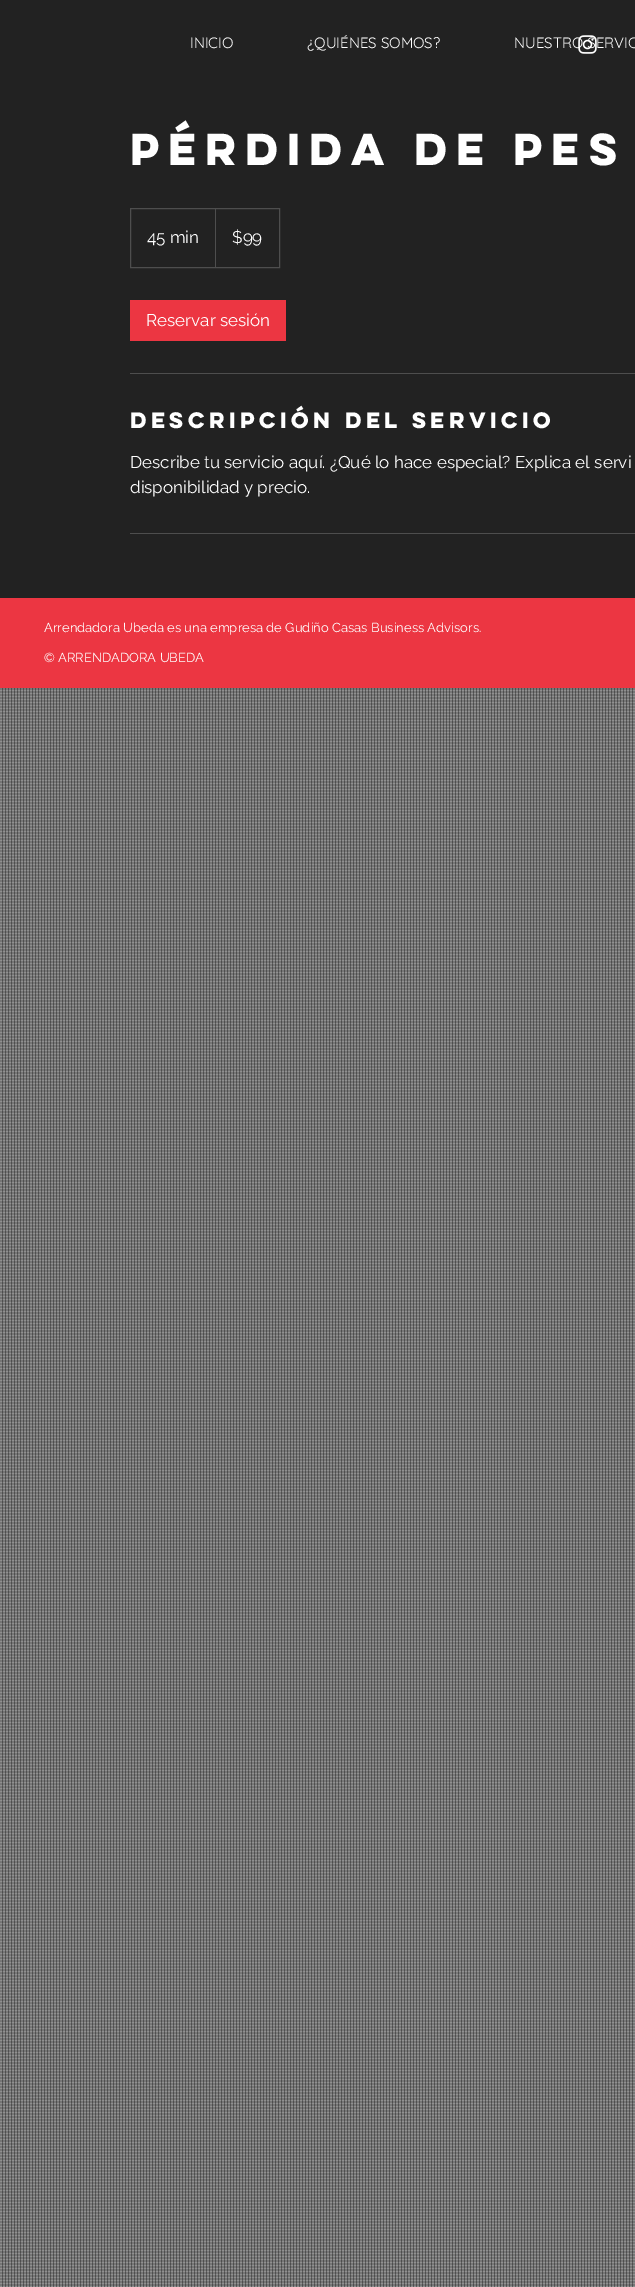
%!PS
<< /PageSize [635 2287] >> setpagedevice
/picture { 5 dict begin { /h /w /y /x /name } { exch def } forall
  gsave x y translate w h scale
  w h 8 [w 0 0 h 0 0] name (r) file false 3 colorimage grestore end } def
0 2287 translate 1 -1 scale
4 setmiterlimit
0.569 setgray
0 0 635 2287 rectfill
0.133 setgray
0 0 635 598 rectfill
/Quicksand-Regular [15 0 0 -15 0 0] selectfont
1 setgray
190 48 moveto (INICIO) show
307 48 moveto (¿QUIÉNES SOMOS?) show
514 48 moveto (NUESTRO SERVIC) show
(img1.rgb) 578 35 19 19 picture
/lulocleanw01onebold-Bold [40 0 0 -40 0 0] selectfont
130 165 moveto (Pérdida de pes) show
0.306 setgray
130.5 208.5 149 59 rectstroke
/Raleway-Regular [17 0 0 -17 0 0] selectfont
1 setgray
147 243 moveto (45 min) show
0.306 setgray
newpath 215 267 moveto 215 208 lineto 216 209 lineto 216 267 lineto closepath fill
1 setgray
232 243 moveto ($99) show
0.925 0.212 0.259 setrgbcolor
130 300 156 41 rectfill
1 setgray
146 326 moveto (Reservar sesión) show
0.306 setgray
130 373 505 1 rectfill
/lulocleanw01onebold-Bold [20 0 0 -20 0 0] selectfont
1 setgray
130 428 moveto (Descripción del servicio) show
/Raleway-Regular [17 0 0 -17 0 0] selectfont
130 468 moveto (Describe tu servicio aquí. ¿Qué lo hace especial? Explica el servi) show
130 493 moveto (disponibilidad y precio.) show
0.306 setgray
130 533 505 1 rectfill
0.925 0.212 0.259 setrgbcolor
0 598 635 90 rectfill
/Raleway-Regular [13 0 0 -13 0 0] selectfont
1 setgray
44 632 moveto (Arrendadora Ubeda es una empresa de Gudiño Casas Business Advisors.) show
44 662 moveto (© ARRENDADORA UBEDA) show
(img2.rgb) 0 688 635 1599 picture
showpage
